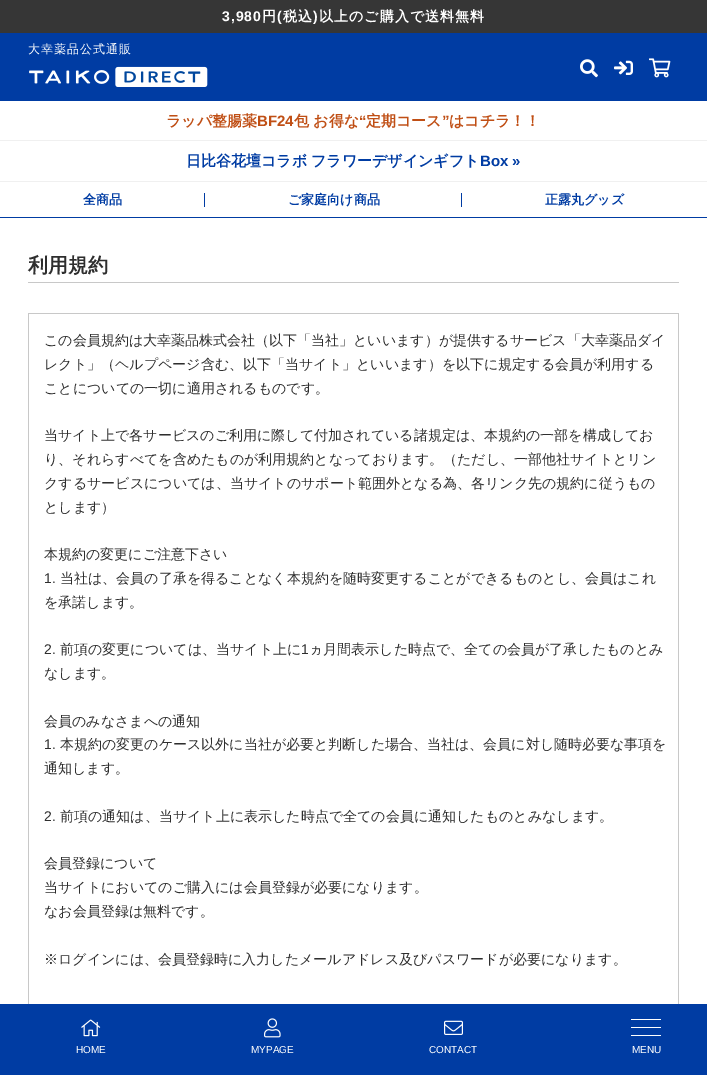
%!PS
<< /PageSize [707 1075] >> setpagedevice
/picture { 5 dict begin { /h /w /y /x /name } { exch def } forall
  gsave x y translate w h scale
  w h 8 [w 0 0 h 0 0] name (r) file false 3 colorimage grestore end } def
0 1075 translate 1 -1 scale
4 setmiterlimit
1 setgray
0 0 707 1075 rectfill
0 0.235 0.639 setrgbcolor
0 33 707 68 rectfill
0.212 setgray
0 0 707 33 rectfill
/LiberationSans-Bold [14 0 0 -14 0 0] selectfont
1 setgray
222 21 moveto 1 0 (3,980) ashow
/WenQuanYiZenHei-Bold [14 0 0 -14 0 0] selectfont
262 21 moveto 1 0 (円) ashow
/LiberationSans-Bold [14 0 0 -14 0 0] selectfont
277 21 moveto 1 0 (\() ashow
/WenQuanYiZenHei-Bold [14 0 0 -14 0 0] selectfont
283 21 moveto 1 0 (税込) ashow
/LiberationSans-Bold [14 0 0 -14 0 0] selectfont
313 21 moveto 1 0 (\)) ashow
/WenQuanYiZenHei-Bold [14 0 0 -14 0 0] selectfont
319 21 moveto 1 0 (以上のご購入で送料無料) ashow
/WenQuanYiZenHei-Medium [12 0 0 -12 0 0] selectfont
28 53 moveto 1 0 (大幸薬品公式通販) ashow
(img1.rgb) 29 66 179 21 picture
(img2.rgb) 580 59 18 19 picture
(img3.rgb) 614 60 19 15 picture
(img4.rgb) 649 58 22 20 picture
0.941 setgray
0 140 707 1 rectfill
/WenQuanYiZenHei-Bold [15 0 0 -15 0 0] selectfont
0.753 0.31 0.082 setrgbcolor
166 126 moveto (ラッパ整腸薬) show
/LiberationSans-Bold [15 0 0 -15 0 0] selectfont
257 126 moveto (BF24) show
/WenQuanYiZenHei-Bold [15 0 0 -15 0 0] selectfont
294 126 moveto (包 お得な) show
/LiberationSans-Bold [15 0 0 -15 0 0] selectfont
359 126 moveto (“) show
/WenQuanYiZenHei-Bold [15 0 0 -15 0 0] selectfont
366 126 moveto (定期コース) show
/LiberationSans-Bold [15 0 0 -15 0 0] selectfont
442 126 moveto (”) show
/WenQuanYiZenHei-Bold [15 0 0 -15 0 0] selectfont
449 126 moveto (はコチラ！！) show
0.941 setgray
0 181 707 1 rectfill
0 0.235 0.639 setrgbcolor
186 166 moveto (日比谷花壇コラボ) show
311 166 moveto (フラワーデザインギフト) show
/LiberationSans-Bold [15 0 0 -15 0 0] selectfont
480 166 moveto (Box ») show
0 217 707 1 rectfill
/WenQuanYiZenHei-Bold [13 0 0 -13 0 0] selectfont
83 204 moveto (全商品) show
204 193 1 14 rectfill
288 204 moveto (ご家庭向け商品) show
461 193 1 14 rectfill
545 204 moveto (正露丸グッズ) show
0.784 setgray
28 282 651 1 rectfill
/WenQuanYiZenHei-Bold [20 0 0 -20 0 0] selectfont
0.18 setgray
28 272 moveto (利用規約) show
0.784 setgray
28 313 651 1 rectfill
28 313 1 691 rectfill
678 313 1 691 rectfill
/WenQuanYiZenHei-Medium [14 0 0 -14 0 0] selectfont
0.18 setgray
44 345 moveto (この会員規約は大幸薬品株式会社（以下「当社」といいます）が提供するサービス「大幸薬品ダイ) show
44 369 moveto (レクト」（ヘルプページ含む、以下「当サイト」といいます）を以下に規定する会員が利用する) show
44 393 moveto (ことについての一切に適用されるものです。) show
44 440 moveto (当サイト上で各サービスのご利用に際して付加されている諸規定は、本規約の一部を構成してお) show
44 464 moveto (り、それらすべてを含めたものが利用規約となっております。（ただし、一部他社サイトとリン) show
44 488 moveto (クするサービスについては、当サイトのサポート範囲外となる為、各リンク先の規約に従うもの) show
44 512 moveto (とします）) show
44 559 moveto (本規約の変更にご注意下さい) show
/LiberationSans-Regular [14 0 0 -14 0 0] selectfont
44 583 moveto (1.) show
/WenQuanYiZenHei-Medium [14 0 0 -14 0 0] selectfont
60 583 moveto (当社は、会員の了承を得ることなく本規約を随時変更することができるものとし、会員はこれ) show
44 607 moveto (を承諾します。) show
/LiberationSans-Regular [14 0 0 -14 0 0] selectfont
44 654 moveto (2.) show
/WenQuanYiZenHei-Medium [14 0 0 -14 0 0] selectfont
60 654 moveto (前項の変更については、当サイト上に) show
/LiberationSans-Regular [14 0 0 -14 0 0] selectfont
301 654 moveto (1) show
/WenQuanYiZenHei-Medium [14 0 0 -14 0 0] selectfont
309 654 moveto (ヵ月間表示した時点で、全ての会員が了承したものとみ) show
44 678 moveto (なします。) show
44 726 moveto (会員のみなさまへの通知) show
/LiberationSans-Regular [14 0 0 -14 0 0] selectfont
44 749 moveto (1.) show
/WenQuanYiZenHei-Medium [14 0 0 -14 0 0] selectfont
60 749 moveto (本規約の変更のケース以外に当社が必要と判断した場合、当社は、会員に対し随時必要な事項を) show
44 773 moveto (通知します。) show
/LiberationSans-Regular [14 0 0 -14 0 0] selectfont
44 821 moveto (2.) show
/WenQuanYiZenHei-Medium [14 0 0 -14 0 0] selectfont
60 821 moveto (前項の通知は、当サイト上に表示した時点で全ての会員に通知したものとみなします。) show
44 868 moveto (会員登録について) show
44 892 moveto (当サイトにおいてのご購入には会員登録が必要になります。) show
44 916 moveto (なお会員登録は無料です。) show
44 964 moveto (※ログインには、会員登録時に入力したメールアドレス及びパスワードが必要になります。) show
0 0.235 0.639 setrgbcolor
0 1004 707 71 rectfill
(img5.rgb) 81 1019 20 18 picture
/LiberationSans-Regular [10 0 0 -10 0 0] selectfont
1 setgray
76 1053 moveto (HOME) show
(img6.rgb) 264 1018 17 20 picture
251 1053 moveto (MYPAGE) show
(img7.rgb) 444 1020 19 15 picture
429 1053 moveto (CONTACT) show
631 1027 30 1 rectfill
631 1019 30 1 rectfill
631 1035 30 1 rectfill
632 1053 moveto (MENU) show
showpage
